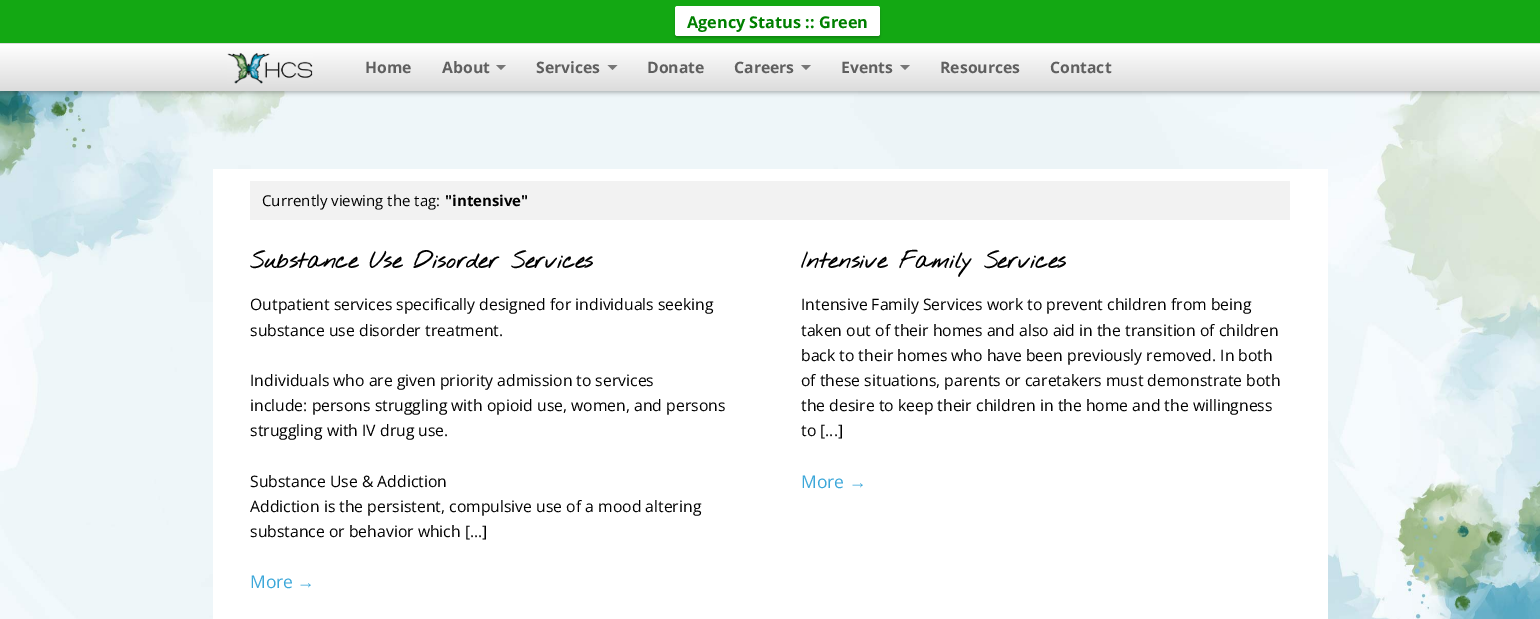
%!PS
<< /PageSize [1540 619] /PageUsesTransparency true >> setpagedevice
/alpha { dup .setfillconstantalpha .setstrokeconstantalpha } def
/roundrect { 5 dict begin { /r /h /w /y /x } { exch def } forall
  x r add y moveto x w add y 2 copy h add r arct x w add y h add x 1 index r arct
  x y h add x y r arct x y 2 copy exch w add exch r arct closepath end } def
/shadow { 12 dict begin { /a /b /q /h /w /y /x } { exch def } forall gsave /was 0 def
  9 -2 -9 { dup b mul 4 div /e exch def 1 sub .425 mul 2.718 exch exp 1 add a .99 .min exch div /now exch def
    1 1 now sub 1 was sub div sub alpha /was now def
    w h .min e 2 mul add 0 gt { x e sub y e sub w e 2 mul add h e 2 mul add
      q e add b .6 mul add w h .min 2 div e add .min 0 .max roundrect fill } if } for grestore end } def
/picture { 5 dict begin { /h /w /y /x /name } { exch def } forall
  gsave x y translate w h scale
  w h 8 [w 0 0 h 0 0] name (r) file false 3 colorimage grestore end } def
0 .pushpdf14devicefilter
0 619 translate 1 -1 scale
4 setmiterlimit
1 setgray
0 0 1540 619 rectfill
(img2.rgb) 0 91 1540 528 picture
0 setgray
0 44 1540 49 0 2 0.25 shadow
0.075 0.659 0.075 setrgbcolor
0 0 1540 43 rectfill
0 setgray
675 8 205 30 2.5 1 0.2 shadow
1 setgray
675 6 205 30 2.5 roundrect fill
/OpenSans-Bold [16.25 0 0 -16.25 0 0] selectfont
0 0.502 0 setrgbcolor
687 28 moveto (Agency Status :: Green) show
gsave newpath 0 44 moveto 1540 44 lineto 1540 91 lineto 0 91 lineto closepath clip newpath
<< /ShadingType 2 /ColorSpace /DeviceRGB /Coords [770 44 770 91] /Extend [true true] /Function << /FunctionType 2 /Domain [0 1] /C0 [1 1 1] /C1 [0.863 0.863 0.863] /N 1 >> >> shfill grestore
0.863 setgray
0 43 1540 1 rectfill
(img1.rgb) 227 53 86 31 picture
/OpenSans-Bold [15.75 0 0 -15.75 0 0] selectfont
0.373 setgray
365 73 moveto (Home) show
442 73 moveto (About) show
0.5 alpha
0 setgray
newpath 496 65 moveto 506 65 lineto 501 70 lineto closepath fill
1 alpha
0.373 setgray
536 73 moveto (Services) show
0.5 alpha
0 setgray
newpath 607.5 65 moveto 617.5 65 lineto 612.5 70 lineto closepath fill
1 alpha
0.373 setgray
647 73 moveto (Donate) show
734 73 moveto (Careers) show
0.5 alpha
0 setgray
newpath 801 65 moveto 811 65 lineto 806 70 lineto closepath fill
1 alpha
0.373 setgray
841 73 moveto (Events) show
0.5 alpha
0 setgray
newpath 900 65 moveto 910 65 lineto 905 70 lineto closepath fill
1 alpha
0.373 setgray
940 73 moveto (Resources) show
1050 73 moveto (Contact) show
1 setgray
213 169 1115 450 rectfill
0.949 setgray
250 181 1040 39 rectfill
/OpenSans-Regular [15 0 0 -15 0 0] selectfont
0 setgray
262 206 moveto (Currently viewing the tag:) show
/OpenSans-Bold [15 0 0 -15 0 0] selectfont
445 206 moveto ("intensive") show
/NothingYouCouldDo-Bold [22.75 0 0 -22.75 0 0] selectfont
250 268 moveto (Substance Use Disorder Services) show
/OpenSans-Regular [15.75 0 0 -15.75 0 0] selectfont
250 310 moveto (Outpatient services specifically designed for individuals seeking) show
250 336 moveto (substance use disorder treatment.) show
250 386 moveto (Individuals who are given priority admission to services) show
250 411 moveto (include: persons struggling with opioid use, women, and persons) show
250 436 moveto (struggling with IV drug use.) show
250 487 moveto (Substance Use & Addiction) show
250 512 moveto (Addiction is the persistent, compulsive use of a mood altering) show
250 537 moveto (substance or behavior which [...]) show
/OpenSans-Regular [17.5 0 0 -17.5 0 0] selectfont
0.235 0.655 0.851 setrgbcolor
250 588 moveto (More) show
/LiberationSerif-Regular [17.5 0 0 -17.5 0 0] selectfont
297 588 moveto (→) show
/NothingYouCouldDo-Bold [22.75 0 0 -22.75 0 0] selectfont
0 setgray
801 268 moveto (Intensive Family Services) show
/OpenSans-Regular [15.75 0 0 -15.75 0 0] selectfont
801 310 moveto (Intensive Family Services work to prevent children from being) show
801 336 moveto (taken out of their homes and also aid in the transition of children) show
801 361 moveto (back to their homes who have been previously removed. In both) show
801 386 moveto (of these situations, parents or caretakers must demonstrate both) show
801 411 moveto (the desire to keep their children in the home and the willingness) show
801 436 moveto (to [...]) show
/OpenSans-Regular [17.5 0 0 -17.5 0 0] selectfont
0.235 0.655 0.851 setrgbcolor
801 488 moveto (More) show
/LiberationSerif-Regular [17.5 0 0 -17.5 0 0] selectfont
849 488 moveto (→) show
.poppdf14devicefilter showpage
